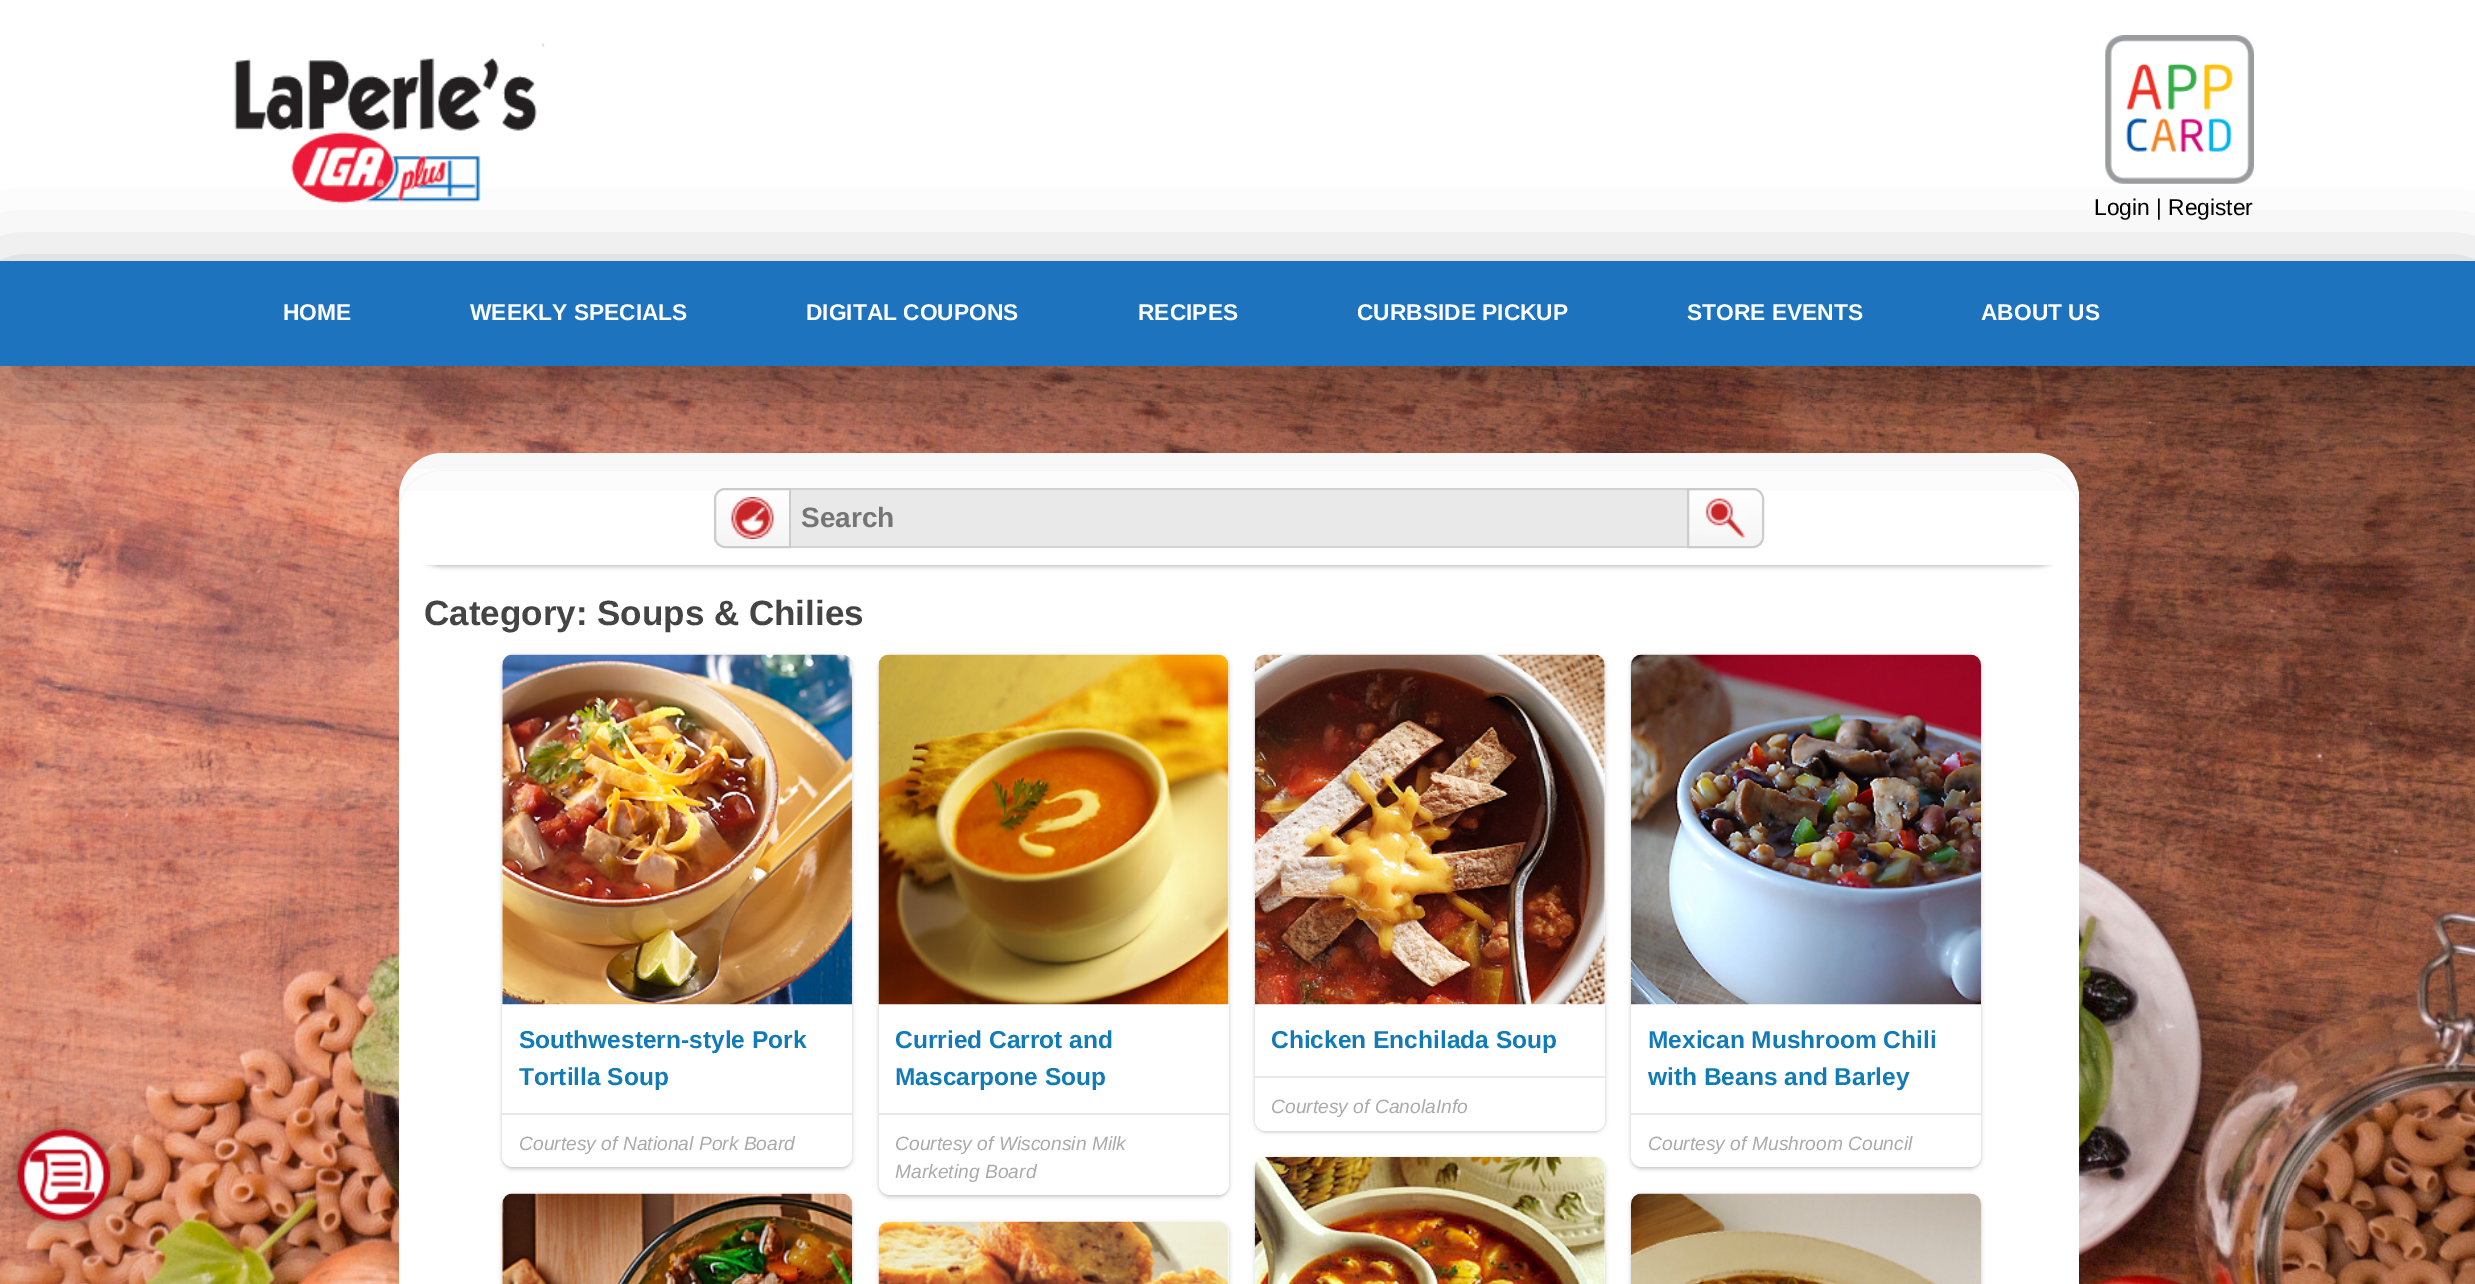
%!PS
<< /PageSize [2475 1284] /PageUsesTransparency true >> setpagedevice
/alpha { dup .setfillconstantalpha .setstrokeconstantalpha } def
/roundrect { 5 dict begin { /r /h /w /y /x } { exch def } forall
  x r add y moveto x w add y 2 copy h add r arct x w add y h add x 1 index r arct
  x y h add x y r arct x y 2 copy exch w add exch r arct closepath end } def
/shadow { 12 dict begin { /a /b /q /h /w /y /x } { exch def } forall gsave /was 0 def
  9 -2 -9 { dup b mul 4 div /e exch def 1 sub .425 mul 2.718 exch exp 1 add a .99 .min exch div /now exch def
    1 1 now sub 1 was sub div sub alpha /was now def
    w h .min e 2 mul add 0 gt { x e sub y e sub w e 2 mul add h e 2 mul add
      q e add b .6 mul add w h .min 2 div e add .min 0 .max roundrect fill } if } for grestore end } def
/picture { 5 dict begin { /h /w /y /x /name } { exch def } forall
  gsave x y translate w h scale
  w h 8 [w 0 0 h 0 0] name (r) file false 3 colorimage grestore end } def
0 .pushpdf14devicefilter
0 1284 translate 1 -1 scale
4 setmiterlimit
1 setgray
0 0 2475 1284 rectfill
(img1.rgb) 0 366 2475 918 picture
gsave
newpath 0 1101 moveto 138 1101 lineto 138 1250 lineto 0 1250 lineto closepath 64 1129 moveto 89.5 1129 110 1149.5 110 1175 curveto 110 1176 lineto 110 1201.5 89.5 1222 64 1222 curveto 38.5 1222 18 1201.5 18 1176 curveto 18 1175 lineto 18 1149.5 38.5 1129 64 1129 curveto closepath eoclip newpath
0 setgray
18 1129 92 93 46 9 0.42 shadow
grestore
(img2.rgb) 17 1128 94 94 picture
(img3.rgb) 234 43 311 161 picture
(img4.rgb) 2105 35 149 149 picture
/LiberationSans-Regular [22.75 0 0 -22.75 0 0] selectfont
0 setgray
2094 215 moveto (Login | Register) show
1 setgray
399 453 1680 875 44 roundrect fill
0 setgray
399 473 1680 94 44 2 0.22 shadow
1 setgray
newpath 443 471 moveto 2035 471 lineto 2059.5 471 2079 490.5 2079 515 curveto 2079 565 lineto 399 565 lineto 399 515 lineto 399 490.5 418.5 471 443 471 curveto closepath fill
gsave
newpath 725 488 moveto 791 488 lineto 791 548 lineto 725 548 lineto 719 548 714 543 714 537 curveto 714 499 lineto 714 493 719 488 725 488 curveto closepath clip newpath
gsave newpath 714 490 moveto 789 490 lineto 789 546 lineto 714 546 lineto closepath clip newpath
<< /ShadingType 2 /ColorSpace /DeviceRGB /Coords [753 490 753 546] /Extend [true true] /Function << /FunctionType 2 /Domain [0 1] /C0 [1 1 1] /C1 [0.961 0.961 0.961] /N 1 >> >> shfill grestore
grestore
0.8 setgray
2 setlinewidth
newpath 725 489 moveto 790 489 lineto 790 547 lineto 725 547 lineto 719.5 547 715 542.5 715 537 curveto 715 499 lineto 715 493.5 719.5 489 725 489 curveto closepath stroke
(img5.rgb) 731 497 43 42 picture
0.914 setgray
791 490 896 56 rectfill
0.831 setgray
791 488 896 2 rectfill
gsave
newpath 1687 488 moveto 1753 488 lineto 1759 488 1764 493 1764 499 curveto 1764 537 lineto 1764 543 1759 548 1753 548 curveto 1687 548 lineto closepath clip newpath
gsave newpath 1689 490 moveto 1764 490 lineto 1764 546 lineto 1689 546 lineto closepath clip newpath
<< /ShadingType 2 /ColorSpace /DeviceRGB /Coords [1726 490 1726 546] /Extend [true true] /Function << /FunctionType 2 /Domain [0 1] /C0 [1 1 1] /C1 [0.961 0.961 0.961] /N 1 >> >> shfill grestore
grestore
0.8 setgray
newpath 1688 489 moveto 1753 489 lineto 1758.5 489 1763 493.5 1763 499 curveto 1763 537 lineto 1763 542.5 1758.5 547 1753 547 curveto 1688 547 lineto closepath stroke
(img6.rgb) 1705 498 41 40 picture
0 setgray
0 287 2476 105 0 44 0.35 shadow
0.118 0.451 0.745 setrgbcolor
0 261 2475 105 rectfill
/LiberationSans-Bold [22.75 0 0 -22.75 0 0] selectfont
1 setgray
283 320 moveto (HOME) show
470 320 moveto (WEEKLY SPECIALS) show
806 320 moveto (DIGITAL COUPONS) show
1138 320 moveto (RECIPES) show
1357 320 moveto (CURBSIDE PICKUP) show
1687 320 moveto (STORE EVENTS) show
1981 320 moveto (ABOUT US) show
0.831 setgray
791 546 896 2 rectfill
/LiberationSans-Bold [28 0 0 -28 0 0] selectfont
0.459 setgray
801 527 moveto (Search) show
/LiberationSans-Bold [35 0 0 -35 0 0] selectfont
0.267 setgray
424 625 moveto (Category: Soups & Chilies) show
0 setgray
502 656 350 513 11 2 0.22 shadow
1 setgray
502 655 350 512 11 roundrect fill
(img7.rgb) 502 654 351 351 picture
/LiberationSans-Bold [24.5 0 0 -24.5 0 0] selectfont
0.067 0.482 0.722 setrgbcolor
519 1048 moveto (Southwestern-style Pork) show
519 1085 moveto (Tortilla Soup) show
0.906 setgray
502 1113 350 2 rectfill
/LiberationSans-Italic [19.25 0 0 -19.25 0 0] selectfont
0.667 setgray
519 1150 moveto (Courtesy of National Pork Board) show
0 setgray
879 656 350 541 11 2 0.22 shadow
1 setgray
879 655 350 540 11 roundrect fill
(img8.rgb) 878 654 351 351 picture
/LiberationSans-Bold [24.5 0 0 -24.5 0 0] selectfont
0.067 0.482 0.722 setrgbcolor
895 1048 moveto (Curried Carrot and) show
895 1085 moveto (Mascarpone Soup) show
0.906 setgray
879 1113 350 2 rectfill
/LiberationSans-Italic [19.25 0 0 -19.25 0 0] selectfont
0.667 setgray
895 1150 moveto (Courtesy of Wisconsin Milk) show
895 1178 moveto (Marketing Board) show
0 setgray
1255 656 350 476 11 2 0.22 shadow
1 setgray
1255 655 350 476 11 roundrect fill
(img9.rgb) 1254 654 351 351 picture
/LiberationSans-Bold [24.5 0 0 -24.5 0 0] selectfont
0.067 0.482 0.722 setrgbcolor
1271 1048 moveto (Chicken Enchilada Soup) show
0.906 setgray
1255 1076 350 2 rectfill
/LiberationSans-Italic [19.25 0 0 -19.25 0 0] selectfont
0.667 setgray
1271 1113 moveto (Courtesy of CanolaInfo) show
0 setgray
1631 656 350 513 11 2 0.22 shadow
1 setgray
1631 655 350 512 11 roundrect fill
(img10.rgb) 1631 654 350 351 picture
/LiberationSans-Bold [24.5 0 0 -24.5 0 0] selectfont
0.067 0.482 0.722 setrgbcolor
1648 1048 moveto (Mexican Mushroom Chili) show
1648 1085 moveto (with Beans and Barley) show
0.906 setgray
1631 1113 350 2 rectfill
/LiberationSans-Italic [19.25 0 0 -19.25 0 0] selectfont
0.667 setgray
1648 1150 moveto (Courtesy of Mushroom Council) show
0 setgray
502 1195 350 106 11 2 0.22 shadow
1 setgray
502 1194 350 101 11 roundrect fill
(img11.rgb) 502 1193 351 91 picture
0 setgray
879 1223 350 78 11 2 0.22 shadow
1 setgray
879 1222 350 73 11 roundrect fill
(img12.rgb) 878 1221 351 63 picture
0 setgray
1255 1159 350 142 11 2 0.22 shadow
1 setgray
1255 1157 350 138 11 roundrect fill
(img13.rgb) 1254 1156 351 128 picture
0 setgray
1631 1195 350 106 11 2 0.22 shadow
(img14.rgb) 1631 1193 350 91 picture
.poppdf14devicefilter showpage
